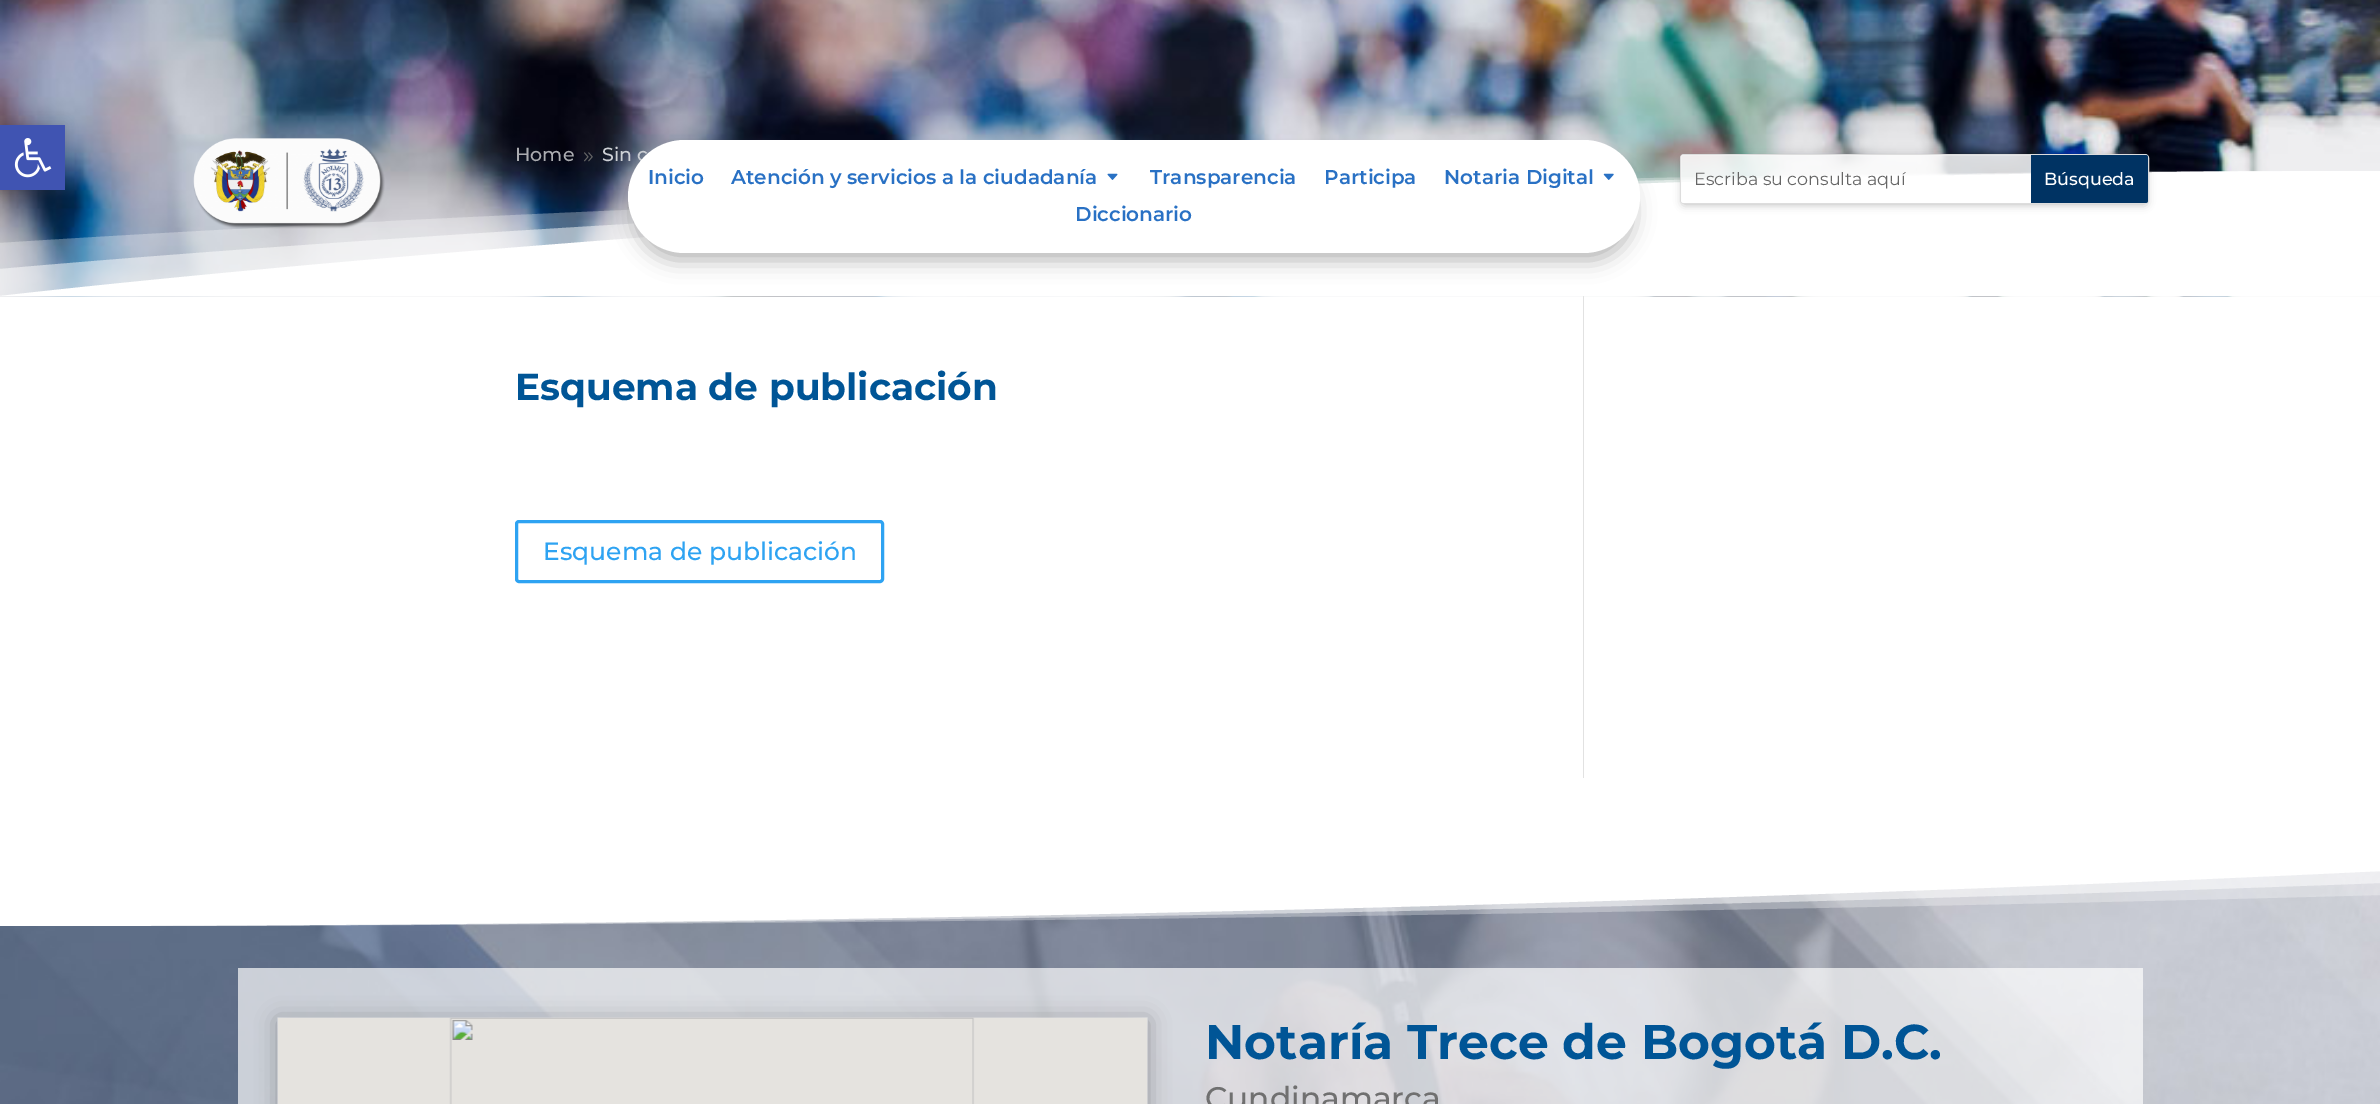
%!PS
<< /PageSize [2380 1104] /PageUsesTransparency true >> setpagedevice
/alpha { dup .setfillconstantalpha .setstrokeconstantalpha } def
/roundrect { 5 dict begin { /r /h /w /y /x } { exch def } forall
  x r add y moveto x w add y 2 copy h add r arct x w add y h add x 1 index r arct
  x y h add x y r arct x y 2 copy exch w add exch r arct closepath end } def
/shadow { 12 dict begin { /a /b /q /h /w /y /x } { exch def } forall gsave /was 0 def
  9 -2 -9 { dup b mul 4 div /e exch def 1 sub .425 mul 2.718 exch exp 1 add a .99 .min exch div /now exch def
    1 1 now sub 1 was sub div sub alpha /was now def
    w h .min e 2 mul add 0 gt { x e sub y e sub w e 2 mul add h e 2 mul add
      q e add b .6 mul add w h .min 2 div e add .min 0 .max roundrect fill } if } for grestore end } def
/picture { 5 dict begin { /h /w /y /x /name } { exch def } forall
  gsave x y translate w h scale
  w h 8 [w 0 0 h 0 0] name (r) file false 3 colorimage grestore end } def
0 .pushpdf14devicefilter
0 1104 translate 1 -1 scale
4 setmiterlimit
1 setgray
0 0 2380 1104 rectfill
0.886 setgray
1583 296 1 482 rectfill
(img2.rgb) 0 0 2380 297 picture
0.3 alpha
1 setgray
newpath 0 296 moveto 0 243 lineto 0 243 1066 171 2380 171 curveto 2380 296 lineto closepath fill
0.5 alpha
newpath 0 296 moveto 0 269 lineto 0 269 1066 171 2380 171 curveto 2380 296 lineto closepath fill
1 alpha
newpath 0 296 moveto 0 296 1066 171 2380 171 curveto 2380 296 lineto closepath fill
0 setgray
0 125 65 65 0 6 0.1 shadow
0.251 0.329 0.698 setrgbcolor
0 125 65 65 rectfill
(img1.rgb) 14 138 38 40 picture
/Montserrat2-Thin [19 0 0 -19 0 0] selectfont
0.671 0.675 0.69 setrgbcolor
515 161 moveto (Home) show
(img3.rgb) 584 152 9 10 picture
0.808 0.82 0.839 setrgbcolor
602 161 moveto (Sin c) show
(img4.rgb) 193 138 192 91 picture
0 setgray
635 163 998 97 48.5 11 0.3 shadow
1 setgray
628 140 1012 113 56.5 roundrect fill
/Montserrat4-Thin [20 0 0 -20 0 0] selectfont
0.161 0.443 0.769 setrgbcolor
648 184 moveto (Inicio) show
731 184 moveto (Atención y servicios a la ciudadanía) show
(img5.rgb) 1107 173 11 7 picture
1150 184 moveto (Transparencia) show
1324 184 moveto (Participa) show
1444 184 moveto (Notaria Digital) show
(img6.rgb) 1603 173 11 7 picture
1075 221 moveto (Diccionario) show
gsave
newpath 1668 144 moveto 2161 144 lineto 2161 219 lineto 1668 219 lineto closepath 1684 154 moveto 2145 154 lineto 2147 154 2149 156 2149 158 curveto 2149 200 lineto 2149 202 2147 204 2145 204 curveto 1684 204 lineto 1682 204 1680 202 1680 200 curveto 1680 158 lineto 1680 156 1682 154 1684 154 curveto closepath eoclip newpath
0 setgray
1683 159 463 45 1 4.5 0.3 shadow
grestore
0.867 setgray
1680.5 154.5 468 49 3.5 roundrect stroke
0.84 alpha
1 setgray
1681 155 467 48 2.5 roundrect fill
/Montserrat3-Thin [17.5 0 0 -17.5 0 0] selectfont
1 alpha
0.4 setgray
1694 185 moveto (Escriba su consulta aquí) show
0 0.2 0.388 setrgbcolor
newpath 2031 155 moveto 2145.5 155 lineto 2147 155 2148 156 2148 157.5 curveto 2148 200.5 lineto 2148 202 2147 203 2145.5 203 curveto 2031 203 lineto closepath fill
/Montserrat2-Thin [17.5 0 0 -17.5 0 0] selectfont
1 setgray
2044 185 moveto (Búsqueda) show
/Montserrat-Thin [37.5 0 0 -37.5 0 0] selectfont
0 0.333 0.588 setrgbcolor
515 400 moveto (Esquema de publicación) show
0.18 0.639 0.949 setrgbcolor
3 setlinewidth
516.5 521.5 366 60 2.5 roundrect stroke
/Montserrat2-Thin [25 0 0 -25 0 0] selectfont
543 560 moveto (Esquema de publicación) show
(img7.rgb) 0 871 2380 233 picture
0.3 alpha
1 setgray
newpath 2380 871 moveto 2380 895 lineto 2380 895 1314 926 0 926 curveto 0 871 lineto closepath fill
0.5 alpha
newpath 2380 871 moveto 2380 883 lineto 2380 883 1314 926 0 926 curveto 0 871 lineto closepath fill
1 alpha
newpath 2380 871 moveto 2380 871 1314 926 0 926 curveto 0 871 lineto closepath fill
0.68 alpha
238 968 1905 136 rectfill
1 alpha
0 setgray
278 1020 870 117 0 11 0.3 shadow
(img8.rgb) 277 1017 871 87 picture
/Montserrat-Thin [48.75 0 0 -48.75 0 0] selectfont
0 0.333 0.588 setrgbcolor
1205 1059 moveto (Notaría Trece de Bogotá D.C.) show
/Montserrat2-Thin [31.25 0 0 -31.25 0 0] selectfont
0.439 setgray
1205 1109 moveto (Cundinamarca) show
.poppdf14devicefilter showpage
